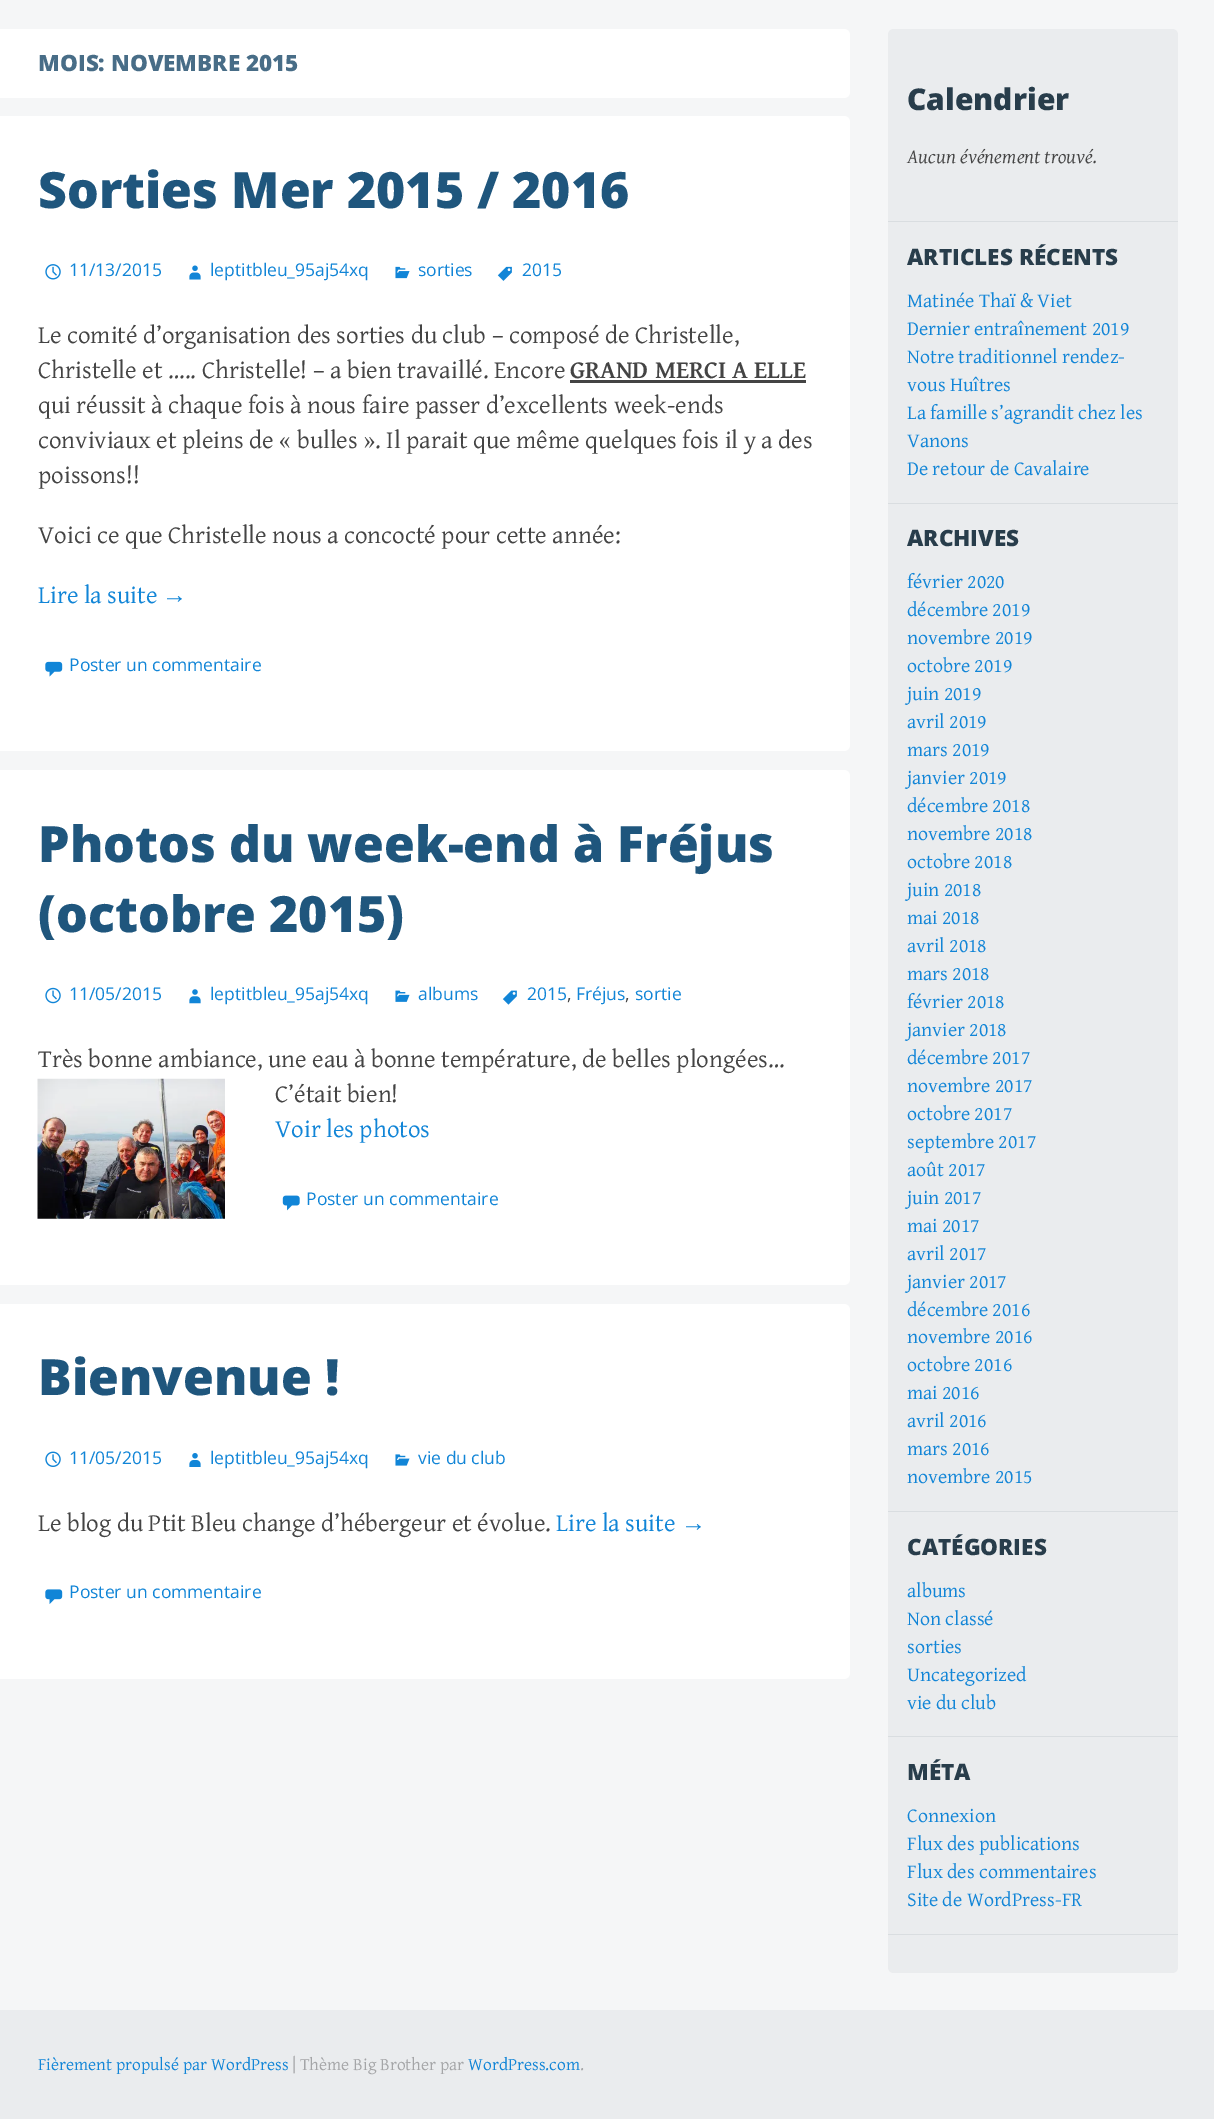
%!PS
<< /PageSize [1214 2119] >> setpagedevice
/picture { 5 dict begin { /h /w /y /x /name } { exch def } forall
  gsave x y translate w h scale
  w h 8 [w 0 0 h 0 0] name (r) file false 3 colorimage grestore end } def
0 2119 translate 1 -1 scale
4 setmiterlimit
0.961 0.965 0.969 setrgbcolor
0 0 1214 2119 rectfill
1 setgray
newpath 0 29 moveto 844 29 lineto 847.5 29 850 31.5 850 35 curveto 850 92 lineto 850 95.5 847.5 98 844 98 curveto 0 98 lineto closepath fill
/OpenSans-ExtraBold [22.5 0 0 -22.5 0 0] selectfont
0.282 0.427 0.529 setrgbcolor
38 71 moveto (MOIS: NOVEMBRE 2015) show
1 setgray
newpath 0 116 moveto 844 116 lineto 847.5 116 850 118.5 850 122 curveto 850 745 lineto 850 748.5 847.5 751 844 751 curveto 0 751 lineto closepath fill
/OpenSans-ExtraBold [50 0 0 -50 0 0] selectfont
0.122 0.337 0.49 setrgbcolor
38 208 moveto (Sorties Mer 2015 / 2016) show
(img1.rgb) 45 264 16 16 picture
/OpenSans-Regular [17.5 0 0 -17.5 0 0] selectfont
0.067 0.522 0.843 setrgbcolor
69 276 moveto (11/13/2015) show
(img2.rgb) 189 265 12 15 picture
210 276 moveto (leptitbleu_95aj54xq) show
(img3.rgb) 395 266 15 13 picture
418 276 moveto (sorties) show
(img4.rgb) 497 266 15 15 picture
522 276 moveto (2015) show
/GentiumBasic-Regular [25 0 0 -25 0 0] selectfont
0.267 setgray
38 343 moveto (Le comité d’organisation des sorties du club – composé de Christelle,) show
38 378 moveto (Christelle et ….. Christelle! – a bien travaillé. Encore) show
/GentiumBasic-Bold [25 0 0 -25 0 0] selectfont
570 378 moveto (GRAND MERCI A ELLE) show
570 380 236 3 rectfill
/GentiumBasic-Regular [25 0 0 -25 0 0] selectfont
38 413 moveto (qui réussit à chaque fois à nous faire passer d’excellents week-ends) show
38 448 moveto (conviviaux et pleins de « bulles ». Il parait que même quelques fois il y a des) show
38 483 moveto (poissons!!) show
38 543 moveto (Voici ce que Christelle nous a concocté pour cette année:) show
0.067 0.522 0.843 setrgbcolor
38 603 moveto (Lire la suite) show
/LiberationSerif-Regular [25 0 0 -25 0 0] selectfont
162 603 moveto (→) show
(img5.rgb) 45 661 18 16 picture
/OpenSans-Regular [17.5 0 0 -17.5 0 0] selectfont
69 671 moveto (Poster un commentaire) show
1 setgray
newpath 0 770 moveto 844 770 lineto 847.5 770 850 772.5 850 776 curveto 850 1279 lineto 850 1282.5 847.5 1285 844 1285 curveto 0 1285 lineto closepath fill
/OpenSans-ExtraBold [50 0 0 -50 0 0] selectfont
0.122 0.337 0.49 setrgbcolor
38 862 moveto (Photos du week-end à Fréjus) show
38 932 moveto (\(octobre 2015\)) show
(img6.rgb) 45 987 16 17 picture
/OpenSans-Regular [17.5 0 0 -17.5 0 0] selectfont
0.067 0.522 0.843 setrgbcolor
69 1000 moveto (11/05/2015) show
(img7.rgb) 189 989 12 15 picture
210 1000 moveto (leptitbleu_95aj54xq) show
(img8.rgb) 395 990 15 12 picture
418 1000 moveto (albums) show
(img9.rgb) 502 990 15 15 picture
527 1000 moveto (2015) show
0.267 setgray
567 1000 moveto (,) show
0.067 0.522 0.843 setrgbcolor
576 1000 moveto (Fréjus) show
0.267 setgray
625 1000 moveto (,) show
0.067 0.522 0.843 setrgbcolor
635 1000 moveto (sortie) show
/GentiumBasic-Regular [25 0 0 -25 0 0] selectfont
0.267 setgray
38 1067 moveto (Très bonne ambiance, une eau à bonne température, de belles plongées…) show
(img10.rgb) 37 1078 188 141 picture
275 1102 moveto (C’était bien!) show
0.067 0.522 0.843 setrgbcolor
275 1137 moveto (Voir les photos) show
(img11.rgb) 282 1195 18 16 picture
/OpenSans-Regular [17.5 0 0 -17.5 0 0] selectfont
306 1205 moveto (Poster un commentaire) show
1 setgray
newpath 0 1304 moveto 844 1304 lineto 847.5 1304 850 1306.5 850 1310 curveto 850 1673 lineto 850 1676.5 847.5 1679 844 1679 curveto 0 1679 lineto closepath fill
/OpenSans-ExtraBold [50 0 0 -50 0 0] selectfont
0.122 0.337 0.49 setrgbcolor
38 1395 moveto (Bienvenue !) show
(img12.rgb) 45 1451 16 16 picture
/OpenSans-Regular [17.5 0 0 -17.5 0 0] selectfont
0.067 0.522 0.843 setrgbcolor
69 1464 moveto (11/05/2015) show
(img13.rgb) 189 1453 12 14 picture
210 1464 moveto (leptitbleu_95aj54xq) show
(img14.rgb) 395 1454 15 12 picture
418 1464 moveto (vie du club) show
/GentiumBasic-Regular [25 0 0 -25 0 0] selectfont
0.267 setgray
38 1531 moveto (Le blog du Ptit Bleu change d’hébergeur et évolue.) show
0.067 0.522 0.843 setrgbcolor
556 1531 moveto (Lire la suite) show
/LiberationSerif-Regular [25 0 0 -25 0 0] selectfont
681 1531 moveto (→) show
(img15.rgb) 45 1589 18 15 picture
/OpenSans-Regular [17.5 0 0 -17.5 0 0] selectfont
69 1598 moveto (Poster un commentaire) show
0.918 0.925 0.933 setrgbcolor
newpath 894 29 moveto 1172 29 lineto 1175.5 29 1178 31.5 1178 35 curveto 1178 221 lineto 888 221 lineto 888 35 lineto 888 31.5 890.5 29 894 29 curveto closepath fill
/OpenSans-ExtraBold [30 0 0 -30 0 0] selectfont
0.157 0.239 0.294 setrgbcolor
907 110 moveto (Calendrier) show
/GentiumBasic-Italic [20 0 0 -20 0 0] selectfont
0.267 setgray
907 163 moveto (Aucun événement trouvé.) show
0.918 0.925 0.933 setrgbcolor
888 222 290 281 rectfill
0.851 0.867 0.878 setrgbcolor
888 221 290 1 rectfill
/OpenSans-ExtraBold [22.5 0 0 -22.5 0 0] selectfont
0.157 0.239 0.294 setrgbcolor
907 265 moveto (ARTICLES RÉCENTS) show
/GentiumBasic-Regular [20 0 0 -20 0 0] selectfont
0.067 0.522 0.843 setrgbcolor
907 307 moveto (Matinée Thaï & Viet) show
907 335 moveto (Dernier entraînement 2019) show
907 363 moveto (Notre traditionnel rendez-) show
907 391 moveto (vous Huîtres) show
907 419 moveto (La famille s’agrandit chez les) show
907 447 moveto (Vanons) show
907 475 moveto (De retour de Cavalaire) show
0.918 0.925 0.933 setrgbcolor
888 504 290 1007 rectfill
0.851 0.867 0.878 setrgbcolor
888 503 290 1 rectfill
/OpenSans-ExtraBold [22.5 0 0 -22.5 0 0] selectfont
0.157 0.239 0.294 setrgbcolor
907 546 moveto (ARCHIVES) show
/GentiumBasic-Regular [20 0 0 -20 0 0] selectfont
0.067 0.522 0.843 setrgbcolor
907 588 moveto (février 2020) show
907 616 moveto (décembre 2019) show
907 644 moveto (novembre 2019) show
907 672 moveto (octobre 2019) show
907 700 moveto (juin 2019) show
907 728 moveto (avril 2019) show
907 756 moveto (mars 2019) show
907 784 moveto (janvier 2019) show
907 812 moveto (décembre 2018) show
907 840 moveto (novembre 2018) show
907 868 moveto (octobre 2018) show
907 896 moveto (juin 2018) show
907 924 moveto (mai 2018) show
907 952 moveto (avril 2018) show
907 980 moveto (mars 2018) show
907 1008 moveto (février 2018) show
907 1036 moveto (janvier 2018) show
907 1064 moveto (décembre 2017) show
907 1092 moveto (novembre 2017) show
907 1120 moveto (octobre 2017) show
907 1148 moveto (septembre 2017) show
907 1176 moveto (août 2017) show
907 1204 moveto (juin 2017) show
907 1232 moveto (mai 2017) show
907 1260 moveto (avril 2017) show
907 1288 moveto (janvier 2017) show
907 1316 moveto (décembre 2016) show
907 1343 moveto (novembre 2016) show
907 1371 moveto (octobre 2016) show
907 1399 moveto (mai 2016) show
907 1427 moveto (avril 2016) show
907 1455 moveto (mars 2016) show
907 1483 moveto (novembre 2015) show
0.918 0.925 0.933 setrgbcolor
888 1512 290 224 rectfill
0.851 0.867 0.878 setrgbcolor
888 1511 290 1 rectfill
/OpenSans-ExtraBold [22.5 0 0 -22.5 0 0] selectfont
0.157 0.239 0.294 setrgbcolor
907 1555 moveto (CATÉGORIES) show
/GentiumBasic-Regular [20 0 0 -20 0 0] selectfont
0.067 0.522 0.843 setrgbcolor
907 1597 moveto (albums) show
907 1625 moveto (Non classé) show
907 1653 moveto (sorties) show
907 1681 moveto (Uncategorized) show
907 1709 moveto (vie du club) show
0.918 0.925 0.933 setrgbcolor
888 1737 290 197 rectfill
0.851 0.867 0.878 setrgbcolor
888 1736 290 1 rectfill
/OpenSans-ExtraBold [22.5 0 0 -22.5 0 0] selectfont
0.157 0.239 0.294 setrgbcolor
907 1780 moveto (MÉTA) show
/GentiumBasic-Regular [20 0 0 -20 0 0] selectfont
0.067 0.522 0.843 setrgbcolor
907 1822 moveto (Connexion) show
907 1850 moveto (Flux des publications) show
907 1878 moveto (Flux des commentaires) show
907 1906 moveto (Site de WordPress-FR) show
0.918 0.925 0.933 setrgbcolor
newpath 888 1935 moveto 1178 1935 lineto 1178 1967 lineto 1178 1970.5 1175.5 1973 1172 1973 curveto 894 1973 lineto 890.5 1973 888 1970.5 888 1967 curveto closepath fill
0.851 0.867 0.878 setrgbcolor
888 1934 290 1 rectfill
0.918 0.925 0.933 setrgbcolor
0 2010 1214 109 rectfill
/GentiumBasic-Regular [17.5 0 0 -17.5 0 0] selectfont
0.067 0.522 0.843 setrgbcolor
38 2070 moveto (Fièrement propulsé par WordPress) show
0.643 0.647 0.655 setrgbcolor
292 2070 moveto (| Thème Big Brother par) show
0.067 0.522 0.843 setrgbcolor
468 2070 moveto (WordPress.com) show
0.643 0.647 0.655 setrgbcolor
580 2070 moveto (.) show
showpage
